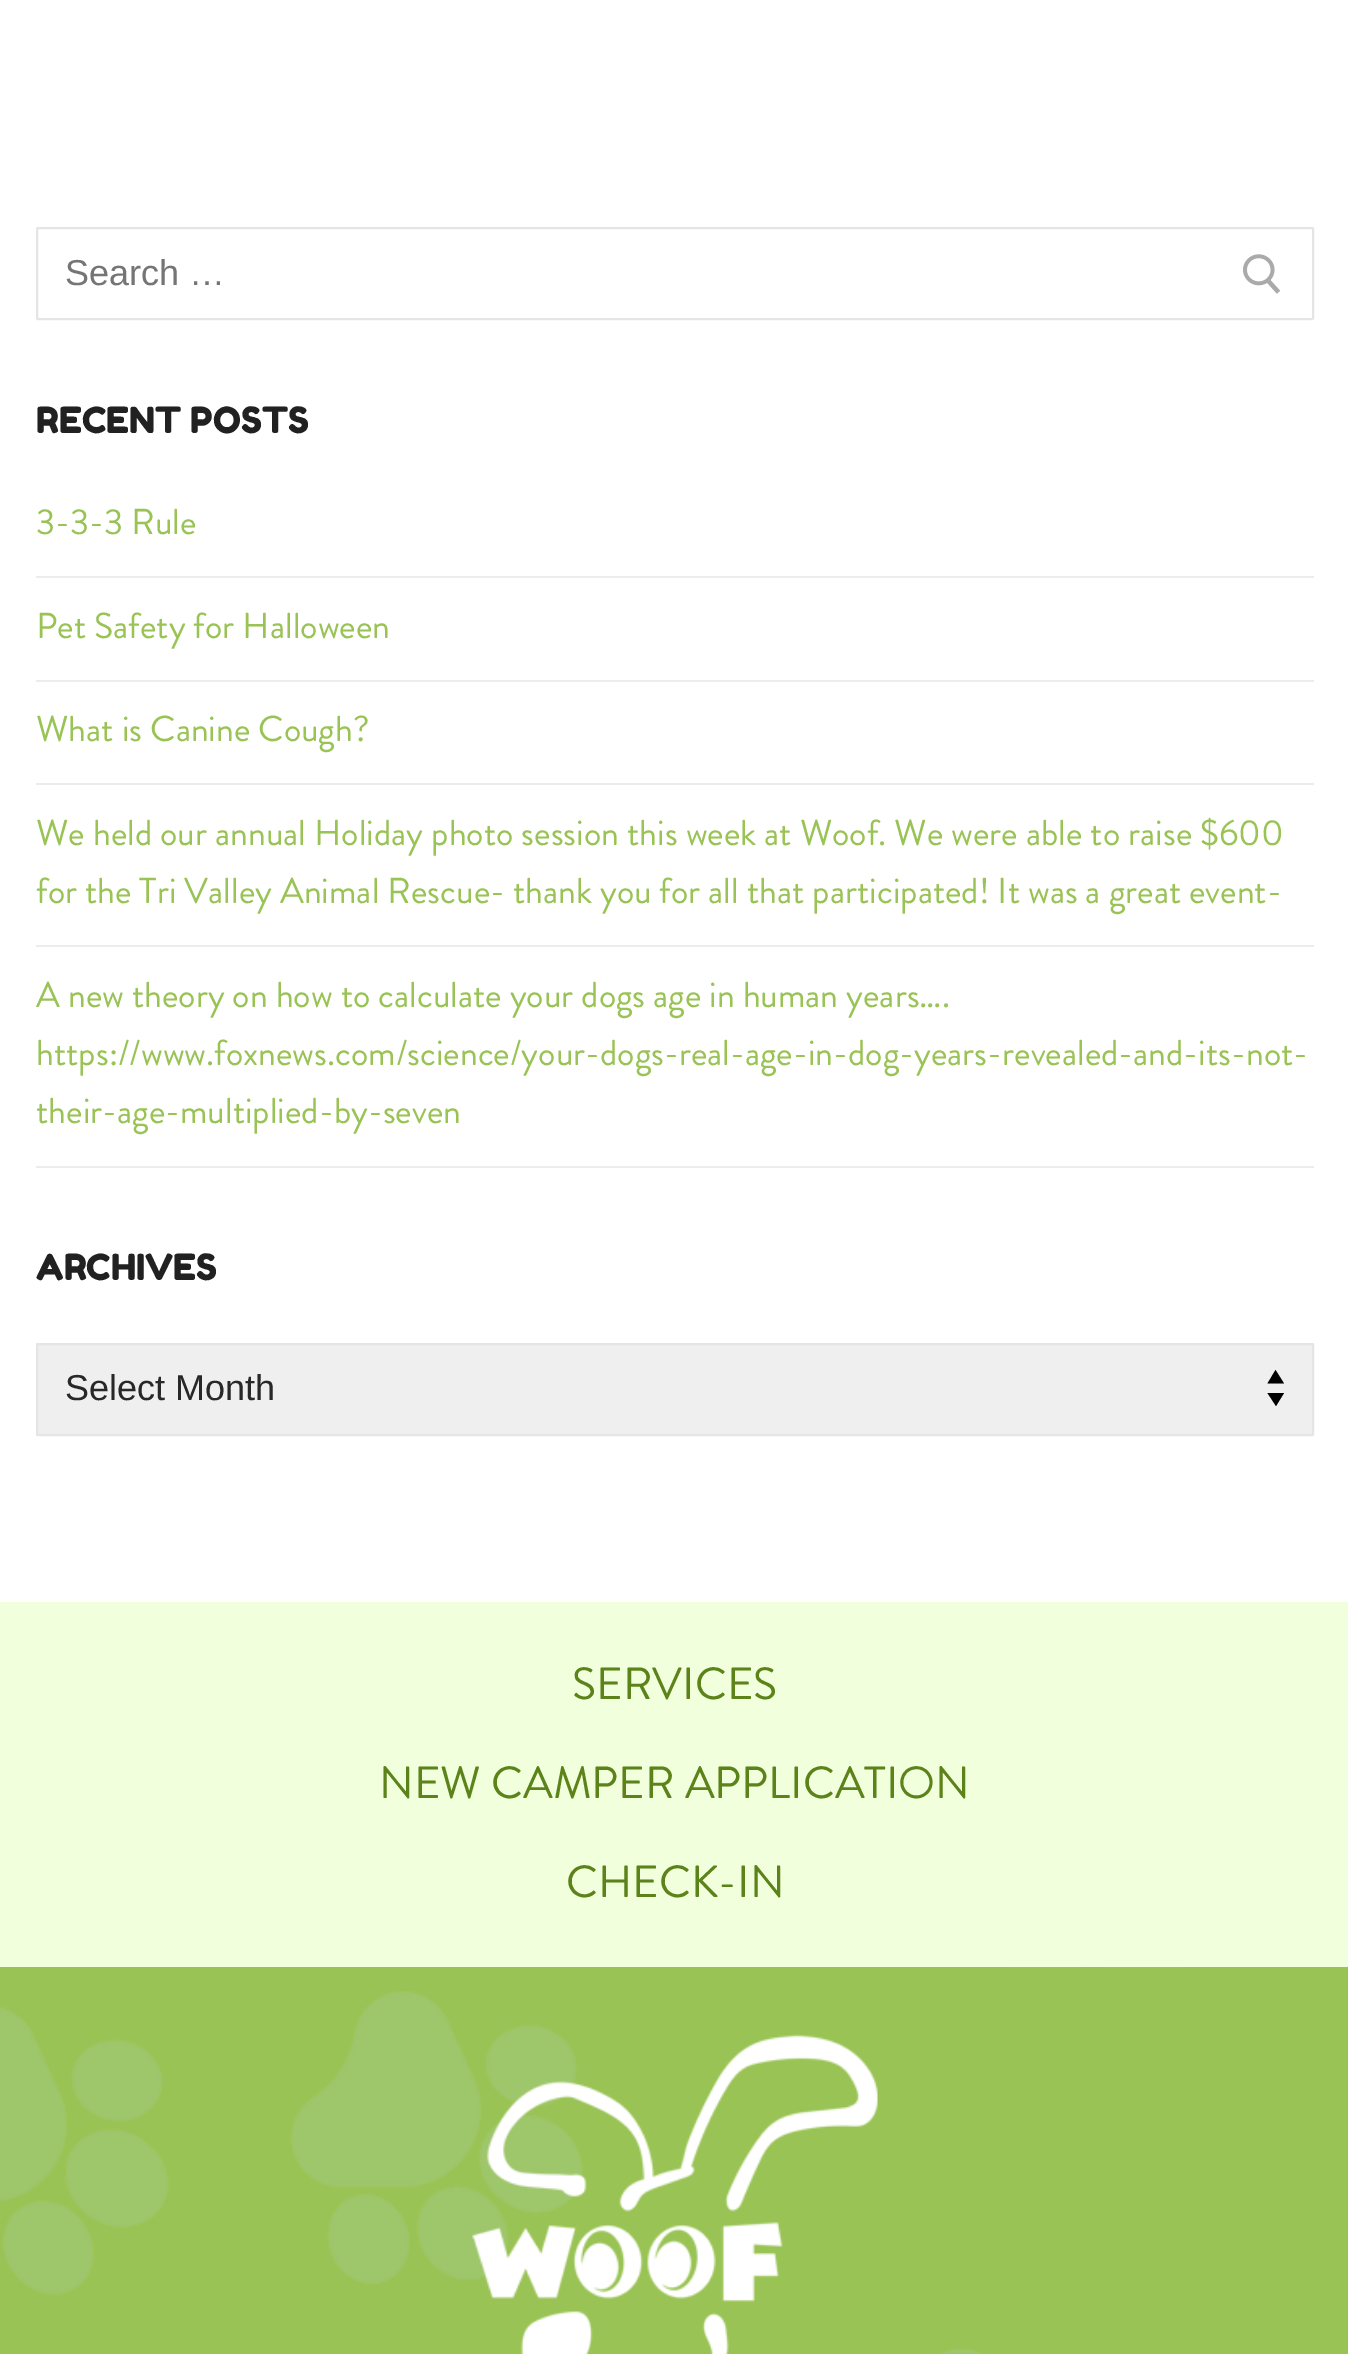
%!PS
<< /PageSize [1348 2354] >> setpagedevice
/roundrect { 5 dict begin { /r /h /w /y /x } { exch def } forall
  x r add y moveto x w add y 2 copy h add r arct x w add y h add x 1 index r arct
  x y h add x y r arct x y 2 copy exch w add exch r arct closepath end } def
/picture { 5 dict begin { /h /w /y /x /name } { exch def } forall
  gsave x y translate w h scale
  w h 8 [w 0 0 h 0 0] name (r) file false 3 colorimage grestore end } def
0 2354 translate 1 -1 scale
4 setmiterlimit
1 setgray
0 0 1348 2354 rectfill
0.898 setgray
2 setlinewidth
37 228 1276 91 1 roundrect stroke
/LiberationSans-Regular [36 0 0 -36 0 0] selectfont
0.459 setgray
65 285 moveto (Search …) show
(img1.rgb) 1243 254 38 40 picture
/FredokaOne-Regular [36 0 0 -36 0 0] selectfont
0.129 setgray
36 433 moveto (RECENT POSTS) show
0.918 0.925 0.933 setrgbcolor
36 576 1278 2 rectfill
/BrandonGrotesque-Regular [36 0 0 -36 0 0] selectfont
0.6 0.765 0.329 setrgbcolor
36 534 moveto (3-3-3 Rule) show
0.918 0.925 0.933 setrgbcolor
36 680 1278 2 rectfill
0.6 0.765 0.329 setrgbcolor
36 638 moveto (Pet Safety for Halloween) show
0.918 0.925 0.933 setrgbcolor
36 783 1278 2 rectfill
0.6 0.765 0.329 setrgbcolor
36 741 moveto (What is Canine Cough?) show
0.918 0.925 0.933 setrgbcolor
36 945 1278 2 rectfill
0.6 0.765 0.329 setrgbcolor
36 845 moveto (We held our annual Holiday photo session this week at Woof. We were able to raise $600) show
36 903 moveto (for the Tri Valley Animal Rescue- thank you for all that participated! It was a great event-) show
0.918 0.925 0.933 setrgbcolor
36 1166 1278 2 rectfill
0.6 0.765 0.329 setrgbcolor
36 1007 moveto (A new theory on how to calculate your dogs age in human years….) show
36 1065 moveto (https://www.foxnews.com/science/your-dogs-real-age-in-dog-years-revealed-and-its-not-) show
36 1123 moveto (their-age-multiplied-by-seven) show
/FredokaOne-Regular [36 0 0 -36 0 0] selectfont
0.129 setgray
36 1280 moveto (ARCHIVES) show
0.937 setgray
36 1343 1278 93 2 roundrect fill
0 setgray
newpath 1275.5 1370 moveto 1267.5 1383.5 lineto 1284 1383.5 lineto closepath 1276 1406 moveto 1284 1393 lineto 1267.5 1393 lineto closepath fill
0.898 setgray
37 1344 1276 91 1 roundrect stroke
/LiberationSans-Regular [36 0 0 -36 0 0] selectfont
0.157 setgray
65 1400 moveto (Select Month) show
0.949 1 0.863 setrgbcolor
0 1602 1348 365 rectfill
/BrandonGrotesque-Regular [45 0 0 -45 0 0] selectfont
0.357 0.514 0.098 setrgbcolor
572 1699 moveto (SERVICES) show
379 1798 moveto (NEW CAMPER APPLICATION) show
566 1897 moveto (CHECK-IN) show
0.6 0.765 0.329 setrgbcolor
0 1967 1348 387 rectfill
(img2.rgb) 0 1967 1183 387 picture
(img3.rgb) 472 2034 406 320 picture
showpage
